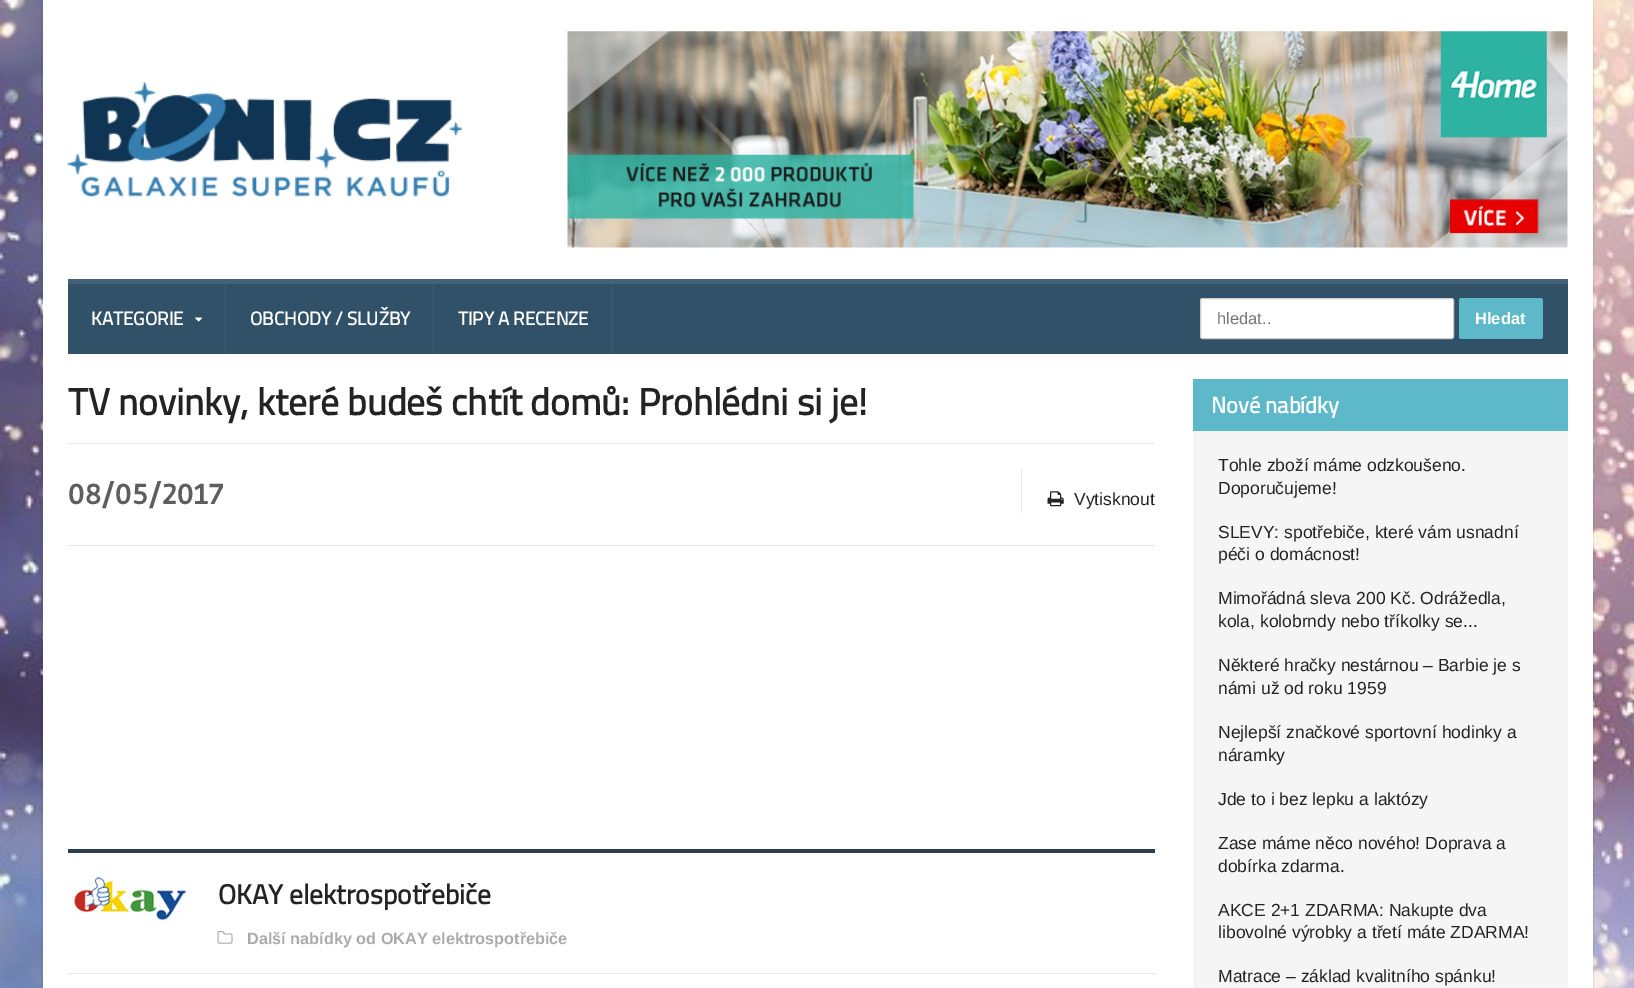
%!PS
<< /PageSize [1634 988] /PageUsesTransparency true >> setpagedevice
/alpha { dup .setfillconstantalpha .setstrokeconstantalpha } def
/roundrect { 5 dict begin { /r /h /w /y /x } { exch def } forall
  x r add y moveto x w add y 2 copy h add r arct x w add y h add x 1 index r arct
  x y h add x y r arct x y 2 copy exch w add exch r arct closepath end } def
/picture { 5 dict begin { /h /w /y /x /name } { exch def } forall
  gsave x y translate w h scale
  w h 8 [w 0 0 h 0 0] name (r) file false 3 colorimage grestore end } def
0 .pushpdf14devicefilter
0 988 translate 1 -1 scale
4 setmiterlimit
1 setgray
0 0 1634 988 rectfill
(img1.rgb) 0 0 1634 988 picture
0.08 alpha
0 setgray
41.5 -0.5 1552 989 rectstroke
1 alpha
1 setgray
43 0 1550 988 rectfill
(img2.rgb) 67 82 396 115 picture
(img3.rgb) 567 31 1001 217 picture
0.192 0.318 0.412 setrgbcolor
434 284 1134 70 rectfill
0.267 0.38 0.467 setrgbcolor
613 279 955 5 rectfill
0.192 0.318 0.412 setrgbcolor
68 284 157 70 rectfill
0.267 0.38 0.467 setrgbcolor
68 279 545 5 rectfill
/TitilliumWeb-Bold [18.75 0 0 -18.75 0 0] selectfont
1 setgray
91 325 moveto (KATEGORIE) show
(img4.rgb) 195 317 8 5 picture
0.239 0.357 0.447 setrgbcolor
225 284 1 70 rectfill
0.192 0.318 0.412 setrgbcolor
226 284 207 70 rectfill
1 setgray
250 325 moveto (OBCHODY / SLUŽBY) show
0.239 0.357 0.447 setrgbcolor
433 284 1 70 rectfill
1 setgray
458 325 moveto (TIPY A RECENZE) show
0.239 0.357 0.447 setrgbcolor
611 284 1 70 rectfill
1 setgray
1200.5 298.5 253 40 2 roundrect gsave fill grestore
0.8 setgray
stroke
/LiberationSans-Regular [16.5 0 0 -16.5 0 0] selectfont
0.459 setgray
1217 324 moveto (hledat..) show
0.365 0.722 0.788 setrgbcolor
1459 298 84 41 2.5 roundrect fill
/LiberationSans-Bold [16.5 0 0 -16.5 0 0] selectfont
1 setgray
1475 324 moveto (Hledat) show
/TitilliumWeb-Bold [37.5 0 0 -37.5 0 0] selectfont
0.137 setgray
68 415 moveto (TV novinky, které budeš chtít domů: Prohlédni si je!) show
0.91 setgray
68 443 1087 1 rectfill
68 545 1087 1 rectfill
/Gudea-Bold [28.75 0 0 -28.75 0 0] selectfont
0.369 setgray
68 504 moveto (08/05/2017) show
0.91 setgray
1021 469 1 44 rectfill
(img5.rgb) 1047 491 17 16 picture
/LiberationSans-Regular [17.5 0 0 -17.5 0 0] selectfont
0.137 setgray
1074 505 moveto (Vytisknout) show
0.173 0.243 0.314 setrgbcolor
68 849 1087 4 rectfill
0.906 setgray
68 973 1087 1 rectfill
(img6.rgb) 74 877 112 44 picture
/TitilliumWeb-Bold [27.5 0 0 -27.5 0 0] selectfont
0.137 setgray
218 904 moveto (OKAY elektrospotřebiče) show
(img7.rgb) 217 931 16 13 picture
/LiberationSans-Bold [16.25 0 0 -16.25 0 0] selectfont
0.667 setgray
247 944 moveto (Další nabídky od OKAY elektrospotřebiče) show
0.365 0.722 0.788 setrgbcolor
1193 379 375 52 rectfill
/TitilliumWeb-Bold [22.5 0 0 -22.5 0 0] selectfont
1 setgray
1211 413 moveto (Nové nabídky) show
0.961 setgray
1193 431 375 557 rectfill
/LiberationSans-Regular [17.5 0 0 -17.5 0 0] selectfont
0.137 setgray
1218 471 moveto (Tohle zboží máme odzkoušeno.) show
1218 494 moveto (Doporučujeme!) show
1218 538 moveto (SLEVY: spotřebiče, které vám usnadní) show
1218 560 moveto (péči o domácnost!) show
1218 604 moveto (Mimořádná sleva 200 Kč. Odrážedla,) show
1218 627 moveto (kola, kolobrndy nebo tříkolky se...) show
1218 671 moveto (Některé hračky nestárnou – Barbie je s) show
1218 694 moveto (námi už od roku 1959) show
1218 738 moveto (Nejlepší značkové sportovní hodinky a) show
1218 761 moveto (náramky) show
1218 805 moveto (Jde to i bez lepku a laktózy) show
1218 849 moveto (Zase máme něco nového! Doprava a) show
1218 872 moveto (dobírka zdarma.) show
1218 916 moveto (AKCE 2+1 ZDARMA: Nakupte dva) show
1218 938 moveto (libovolné výrobky a třetí máte ZDARMA!) show
1218 982 moveto (Matrace – základ kvalitního spánku!) show
.poppdf14devicefilter showpage
